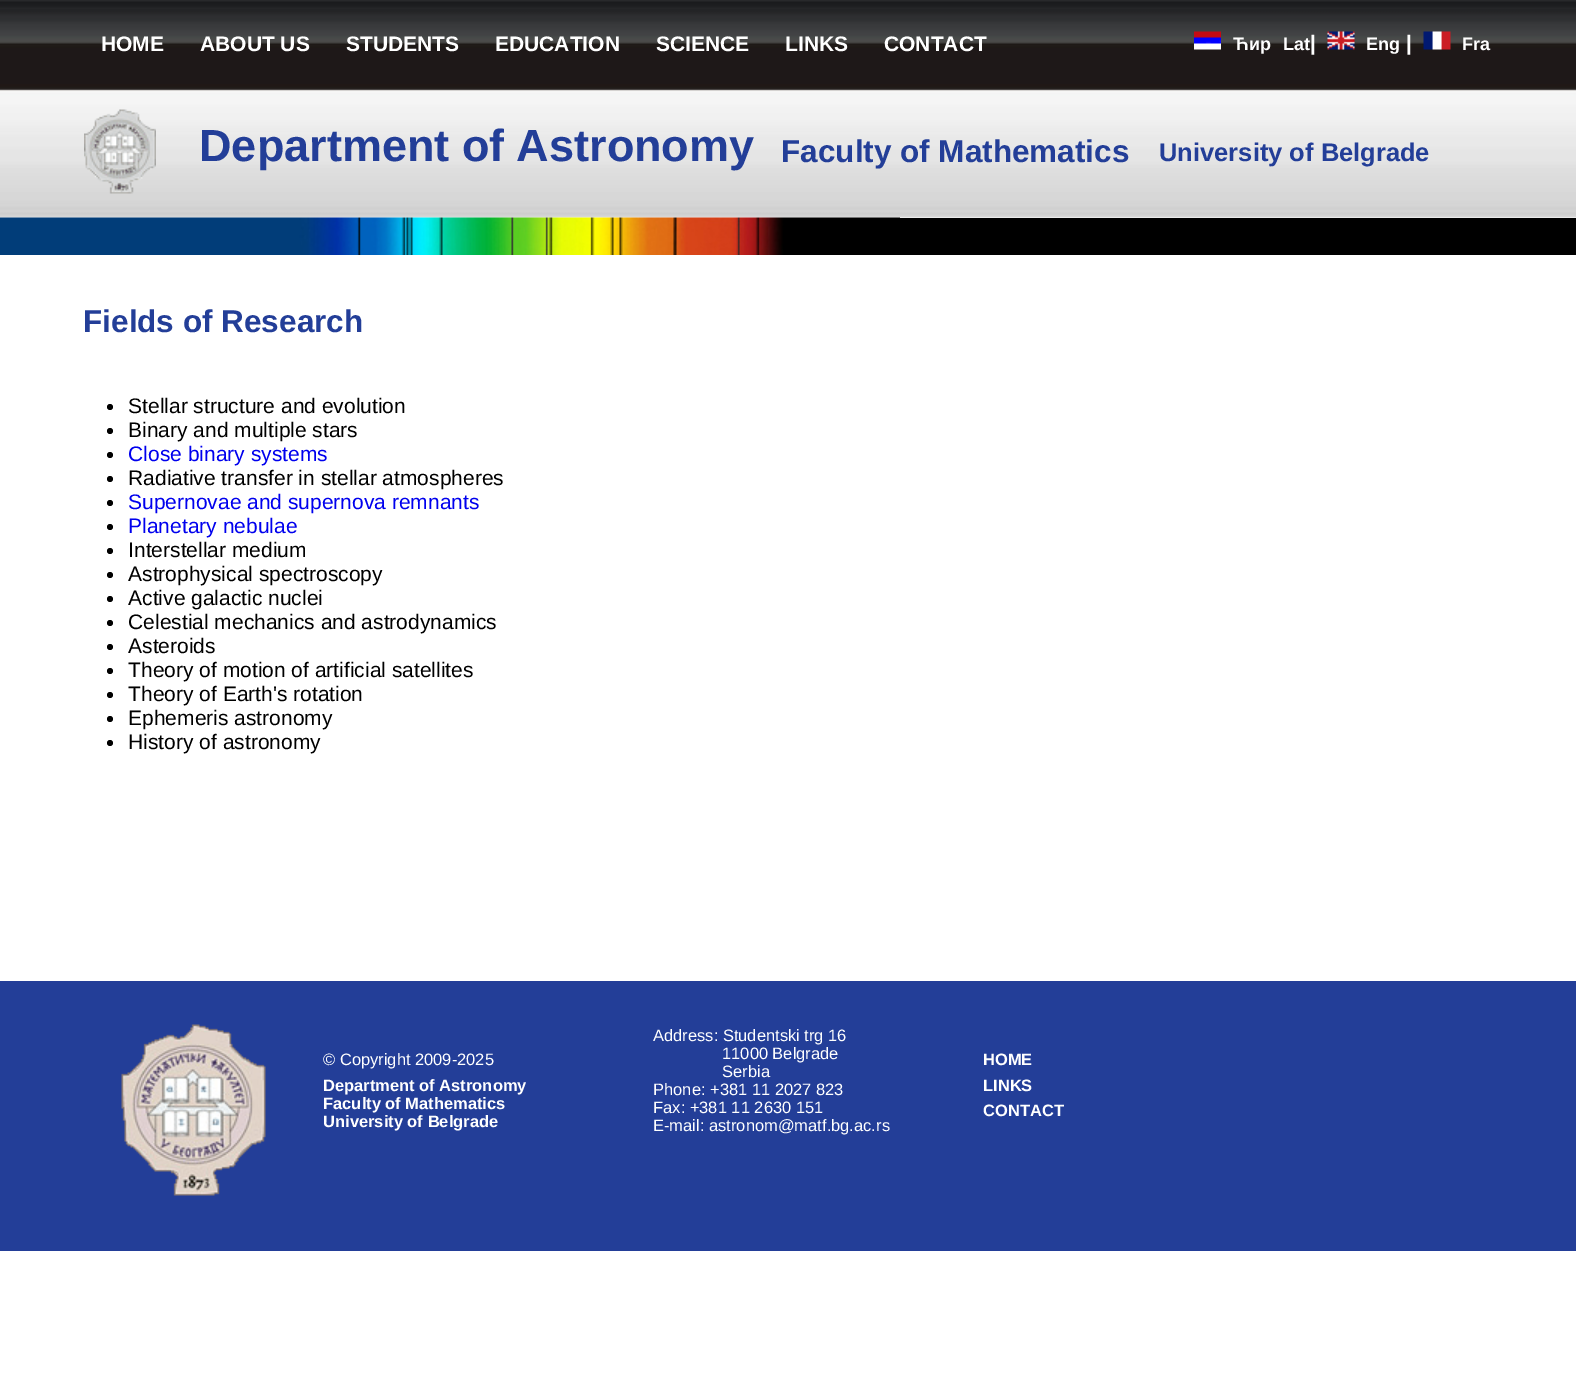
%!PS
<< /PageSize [1576 1388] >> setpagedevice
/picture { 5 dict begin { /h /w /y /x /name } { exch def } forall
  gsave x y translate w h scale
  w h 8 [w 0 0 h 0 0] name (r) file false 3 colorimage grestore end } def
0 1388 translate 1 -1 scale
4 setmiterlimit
1 setgray
0 0 1576 1388 rectfill
(img1.rgb) 0 0 1576 218 picture
/LiberationSans-Bold [21 0 0 -21 0 0] selectfont
101 51 moveto (HOME) show
200 51 moveto (ABOUT US) show
346 51 moveto (STUDENTS) show
495 51 moveto (EDUCATION) show
656 51 moveto (SCIENCE) show
785 51 moveto (LINKS) show
884 51 moveto (CONTACT) show
(img2.rgb) 1194 31 27 19 picture
/LiberationSans-Bold [18 0 0 -18 0 0] selectfont
1233 50 moveto (Ћир) show
1283 50 moveto (Lat) show
/LiberationSans-Bold [21 0 0 -21 0 0] selectfont
1310 50 moveto (|) show
(img3.rgb) 1327 31 28 19 picture
/LiberationSans-Bold [18 0 0 -18 0 0] selectfont
1366 50 moveto (Eng) show
/LiberationSans-Bold [21 0 0 -21 0 0] selectfont
1406 50 moveto (|) show
(img4.rgb) 1423 31 28 19 picture
/LiberationSans-Bold [18 0 0 -18 0 0] selectfont
1462 50 moveto (Fra) show
(img5.rgb) 84 109 72 85 picture
/LiberationSans-Bold [45 0 0 -45 0 0] selectfont
0.137 0.243 0.596 setrgbcolor
199 161 moveto (Department of Astronomy) show
/LiberationSans-Bold [31.5 0 0 -31.5 0 0] selectfont
781 162 moveto (Faculty of Mathematics) show
/LiberationSans-Bold [25.5 0 0 -25.5 0 0] selectfont
1159 161 moveto (University of Belgrade) show
0 setgray
900 218 676 37 rectfill
(img6.rgb) 0 217 900 38 picture
/LiberationSans-Bold [31.5 0 0 -31.5 0 0] selectfont
0.137 0.243 0.596 setrgbcolor
83 332 moveto (Fields of Research) show
0 setgray
newpath 110 407 3 0 360 arc closepath fill
/LiberationSans-Regular [21 0 0 -21 0 0] selectfont
128 413 moveto (Stellar structure and evolution) show
newpath 110 431 3 0 360 arc closepath fill
128 437 moveto (Binary and multiple stars) show
newpath 110 455 3 0 360 arc closepath fill
0 0 0.933 setrgbcolor
128 461 moveto (Close binary systems) show
0 setgray
newpath 110 479 3 0 360 arc closepath fill
128 485 moveto (Radiative transfer in stellar atmospheres) show
newpath 110 503 3 0 360 arc closepath fill
0 0 0.933 setrgbcolor
128 509 moveto (Supernovae and supernova remnants) show
0 setgray
newpath 110 527 3 0 360 arc closepath fill
0 0 0.933 setrgbcolor
128 533 moveto (Planetary nebulae) show
0 setgray
newpath 110 551 3 0 360 arc closepath fill
128 557 moveto (Interstellar medium) show
newpath 110 575 3 0 360 arc closepath fill
128 581 moveto (Astrophysical spectroscopy) show
newpath 110 599 3 0 360 arc closepath fill
128 605 moveto (Active galactic nuclei) show
newpath 110 623 3 0 360 arc closepath fill
128 629 moveto (Celestial mechanics and astrodynamics) show
newpath 110 647 3 0 360 arc closepath fill
128 653 moveto (Asteroids) show
newpath 110 671 3 0 360 arc closepath fill
128 677 moveto (Theory of motion of artificial satellites) show
newpath 110 695 3 0 360 arc closepath fill
128 701 moveto (Theory of Earth's rotation) show
newpath 110 719 3 0 360 arc closepath fill
128 725 moveto (Ephemeris astronomy) show
newpath 110 743 3 0 360 arc closepath fill
128 749 moveto (History of astronomy) show
0.137 0.243 0.596 setrgbcolor
0 981 1576 270 rectfill
(img7.rgb) 121 1024 145 172 picture
/LiberationSans-Regular [16.5 0 0 -16.5 0 0] selectfont
1 setgray
323 1065 moveto (© Copyright 2009-2025) show
/LiberationSans-Bold [16.5 0 0 -16.5 0 0] selectfont
323 1091 moveto (Department of Astronomy) show
323 1109 moveto (Faculty of Mathematics) show
323 1127 moveto (University of Belgrade) show
/LiberationSans-Regular [16.5 0 0 -16.5 0 0] selectfont
653 1041 moveto (Address: Studentski trg 16) show
722 1059 moveto (11000 Belgrade) show
722 1077 moveto (Serbia) show
653 1095 moveto (Phone: +381 11 2027 823) show
653 1113 moveto (Fax: +381 11 2630 151) show
653 1131 moveto (E-mail: astronom@matf.bg.ac.rs) show
/LiberationSans-Bold [16.5 0 0 -16.5 0 0] selectfont
983 1065 moveto (HOME) show
983 1091 moveto (LINKS) show
983 1116 moveto (CONTACT) show
showpage
